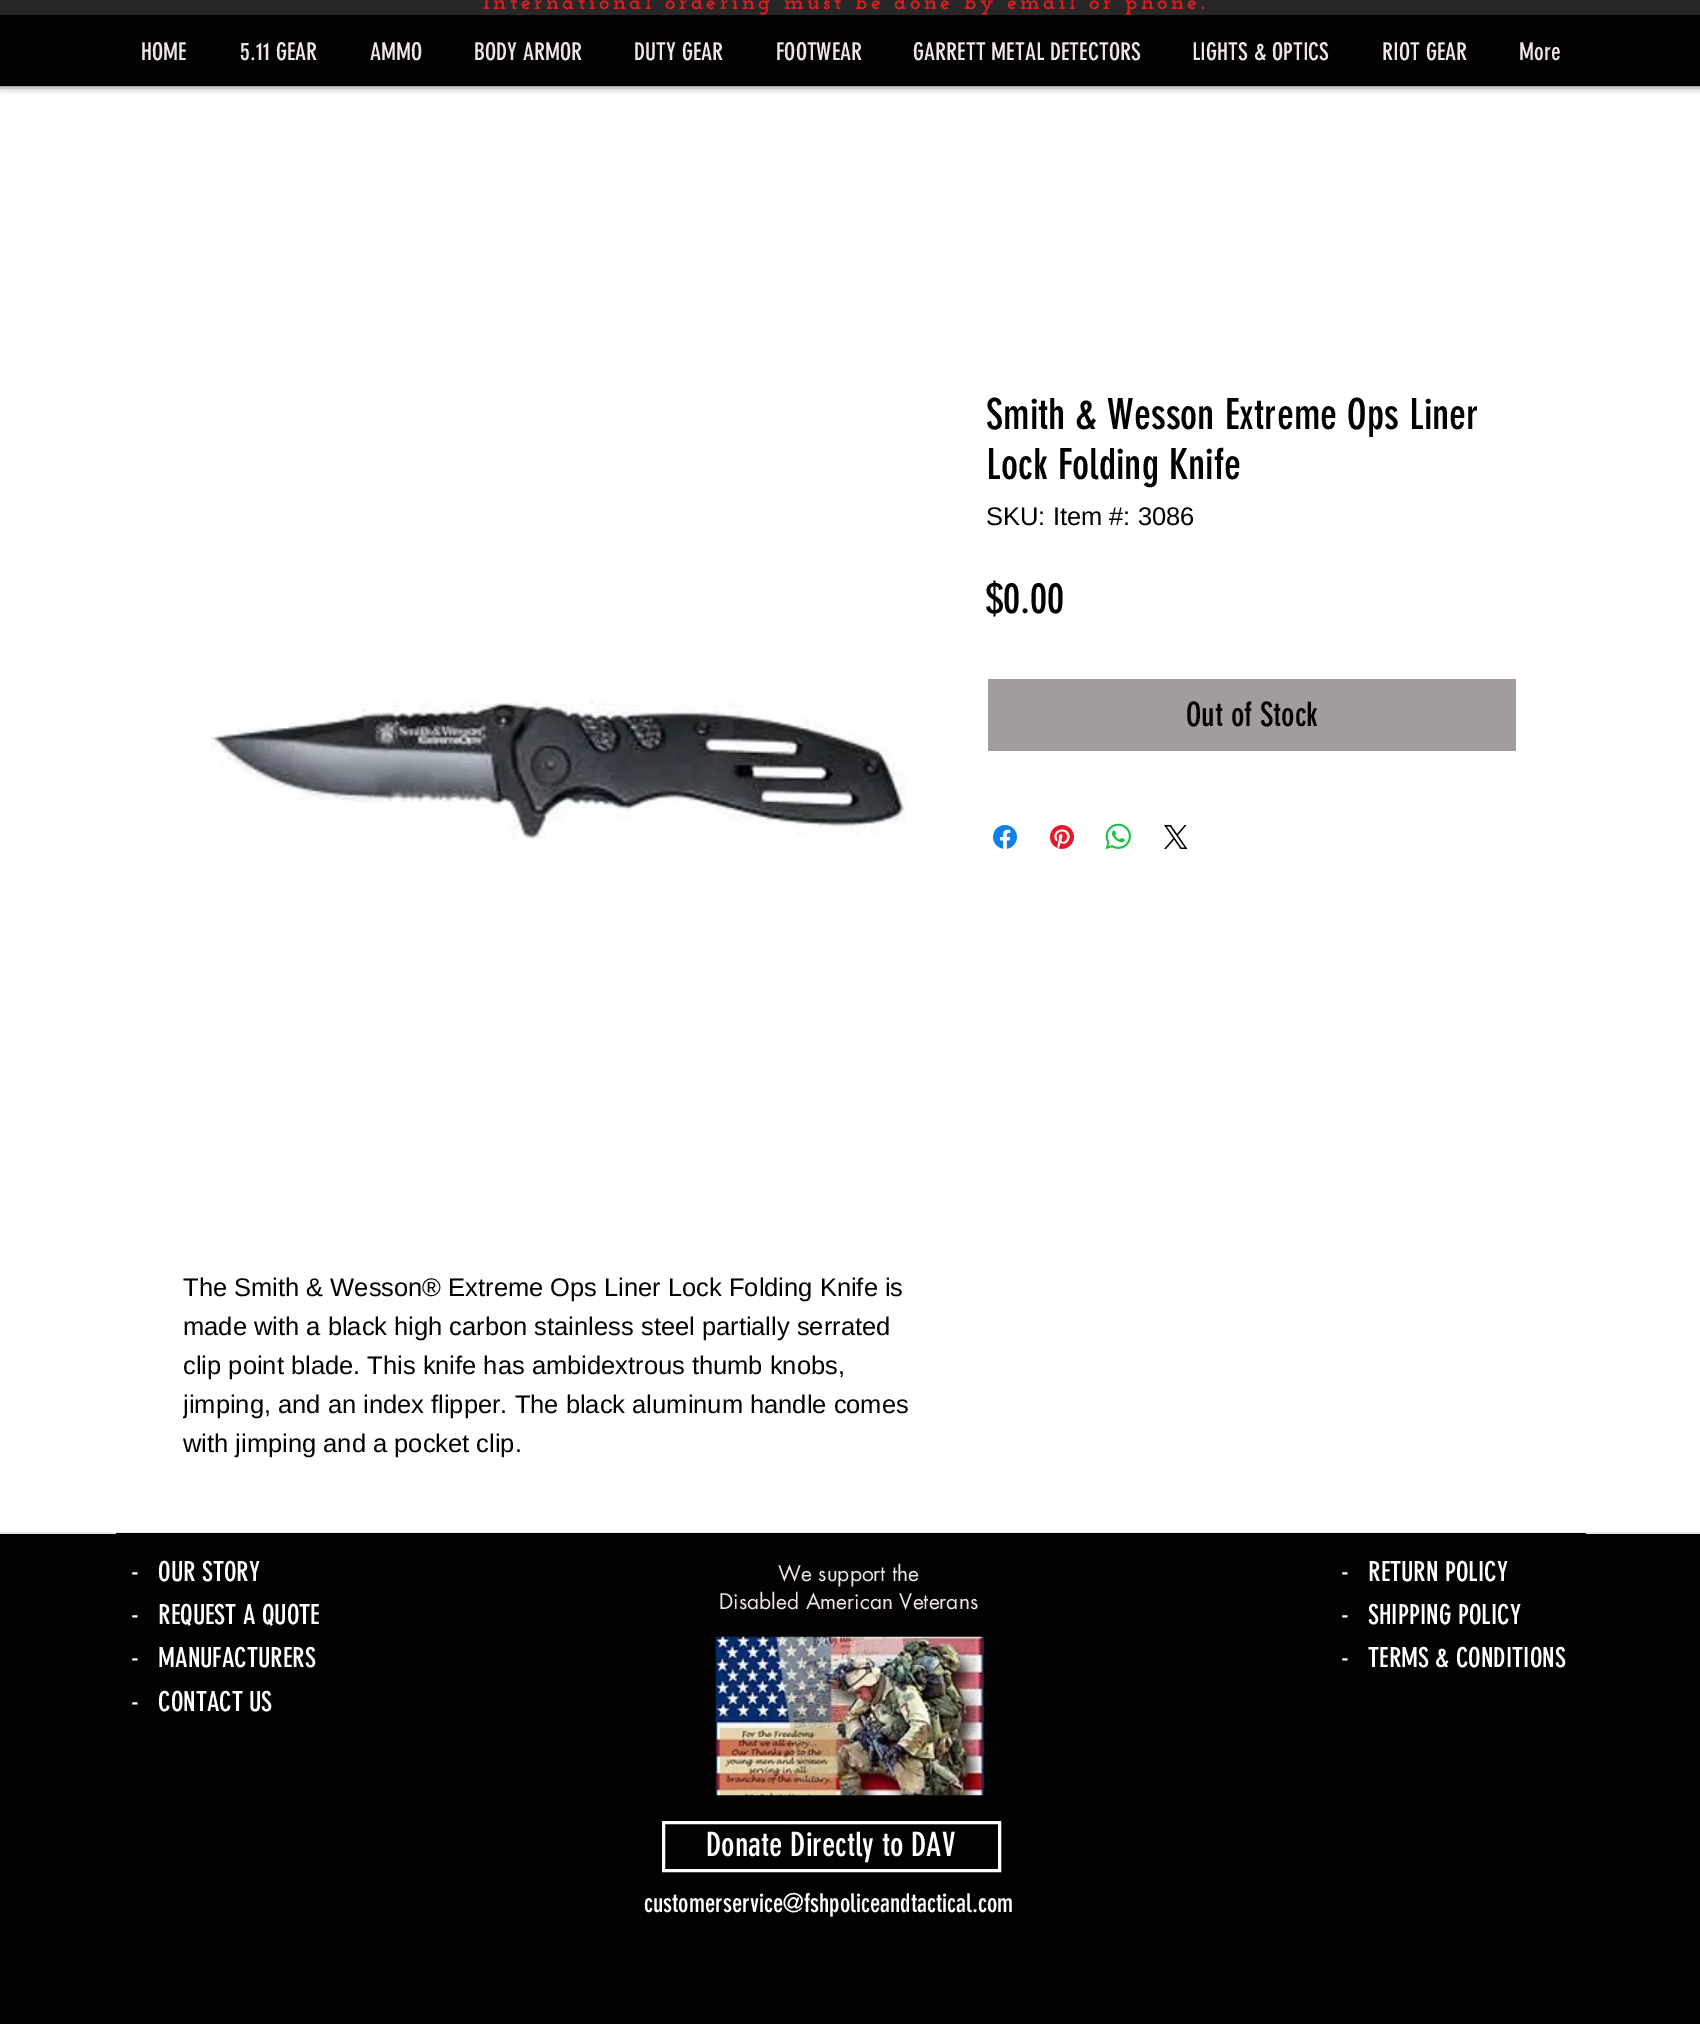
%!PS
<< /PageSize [1700 2024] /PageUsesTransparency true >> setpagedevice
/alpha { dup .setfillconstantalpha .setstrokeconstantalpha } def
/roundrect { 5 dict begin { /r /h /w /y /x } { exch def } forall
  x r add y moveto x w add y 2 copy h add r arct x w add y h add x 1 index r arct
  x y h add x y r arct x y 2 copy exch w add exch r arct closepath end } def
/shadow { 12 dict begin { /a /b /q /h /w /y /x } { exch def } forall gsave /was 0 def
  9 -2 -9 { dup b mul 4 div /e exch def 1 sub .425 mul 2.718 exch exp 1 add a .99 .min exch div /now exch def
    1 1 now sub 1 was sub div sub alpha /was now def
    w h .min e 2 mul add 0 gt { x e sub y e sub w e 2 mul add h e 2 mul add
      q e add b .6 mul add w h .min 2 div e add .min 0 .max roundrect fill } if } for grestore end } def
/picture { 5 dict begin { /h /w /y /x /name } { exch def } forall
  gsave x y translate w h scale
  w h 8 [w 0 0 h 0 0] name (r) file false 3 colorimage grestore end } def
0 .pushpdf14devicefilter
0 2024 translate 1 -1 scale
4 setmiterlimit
1 setgray
0 0 1700 2024 rectfill
0 setgray
0 -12 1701 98 0 4 0.7 shadow
0.008 setgray
0 15 1700 71 rectfill
0.153 setgray
0 0 1700 15 rectfill
/JosefinSlab-Bold [22.5 0 0 -22.5 0 0] selectfont
0.886 0.11 0.129 setrgbcolor
483 9 moveto 3.38 0 (International ordering must be done by email or phone.) ashow
/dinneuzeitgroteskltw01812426-Regular [24 0 0 -24 0 0] selectfont
0.933 0.902 0.902 setrgbcolor
141 60 moveto (HOME) show
240 60 moveto (5.11 GEAR) show
370 60 moveto (AMMO) show
474 60 moveto (BODY ARMOR) show
634 60 moveto (DUTY GEAR) show
776 60 moveto (FOOTWEAR) show
913 60 moveto (GARRETT METAL DETECTORS) show
1192 60 moveto (LIGHTS & OPTICS) show
1382 60 moveto (RIOT GEAR) show
1519 60 moveto (More) show
/dinneuzeitgroteskltw01812426-Regular [42 0 0 -42 0 0] selectfont
0.008 setgray
986 429 moveto (Smith & Wesson Extreme Ops Liner) show
986 479 moveto (Lock Folding Knife) show
/LiberationSans-Regular [25.5 0 0 -25.5 0 0] selectfont
986 525 moveto (SKU: Item #: 3086) show
/dinneuzeitgroteskltw01812426-Regular [42 0 0 -42 0 0] selectfont
986 613 moveto ($0.00) show
0.635 0.612 0.612 setrgbcolor
988 679 528 72 rectfill
/dinneuzeitgroteskltw01812426-Regular [33 0 0 -33 0 0] selectfont
0.008 setgray
1186 726 moveto (Out of Stock) show
(img1.rgb) 993 825 24 24 picture
(img2.rgb) 1050 825 24 24 picture
(img3.rgb) 1105 823 26 27 picture
(img4.rgb) 1164 825 24 24 picture
(img5.rgb) 210 699 697 140 picture
/LiberationSans-Regular [25.5 0 0 -25.5 0 0] selectfont
183 1296 moveto (The Smith & Wesson® Extreme Ops Liner Lock Folding Knife is) show
183 1335 moveto (made with a black high carbon stainless steel partially serrated) show
183 1374 moveto (clip point blade. This knife has ambidextrous thumb knobs,) show
gsave
183 1230 750 234 rectclip
183 1413 moveto (jimping, and an index flipper. The black aluminum handle comes) show
grestore
183 1452 moveto (with jimping and a pocket clip.) show
0 1534 1700 490 rectfill
0.933 0.902 0.902 setrgbcolor
0 1532 1700 2 rectfill
0.008 setgray
116 1533 1470 1 rectfill
/dinneuzeitgroteskltw01812426-Regular [27 0 0 -27 0 0] selectfont
1 setgray
131 1581 moveto (-) show
158 1581 moveto (OUR STORY) show
131 1624 moveto (-) show
158 1624 moveto (REQUEST A QUOTE) show
131 1667 moveto (-) show
158 1667 moveto (MANUFACTURERS) show
131 1711 moveto (-) show
158 1711 moveto (CONTACT US) show
/futura-Regular [21 0 0 -21 0 0] selectfont
0.933 0.902 0.902 setrgbcolor
778 1581 moveto (We support the) show
719 1609 moveto (Disabled American Veterans) show
/dinneuzeitgroteskltw01812426-Regular [27 0 0 -27 0 0] selectfont
1 setgray
1341 1581 moveto (-) show
1368 1581 moveto (RETURN POLICY) show
1341 1624 moveto (-) show
1368 1624 moveto (SHIPPING POLICY) show
1341 1667 moveto (-) show
1368 1667 moveto (TERMS & CONDITIONS) show
(img6.rgb) 715 1636 269 160 picture
3 setlinewidth
663.5 1822.5 336 48 rectstroke
/dinneuzeitgroteskltw01812426-Regular [33 0 0 -33 0 0] selectfont
706 1856 moveto (Donate Directly to DAV) show
/dinneuzeitgroteskltw01812426-Regular [25.5 0 0 -25.5 0 0] selectfont
644 1912 moveto (customerservice@fshpoliceandtactical.com) show
.poppdf14devicefilter showpage
